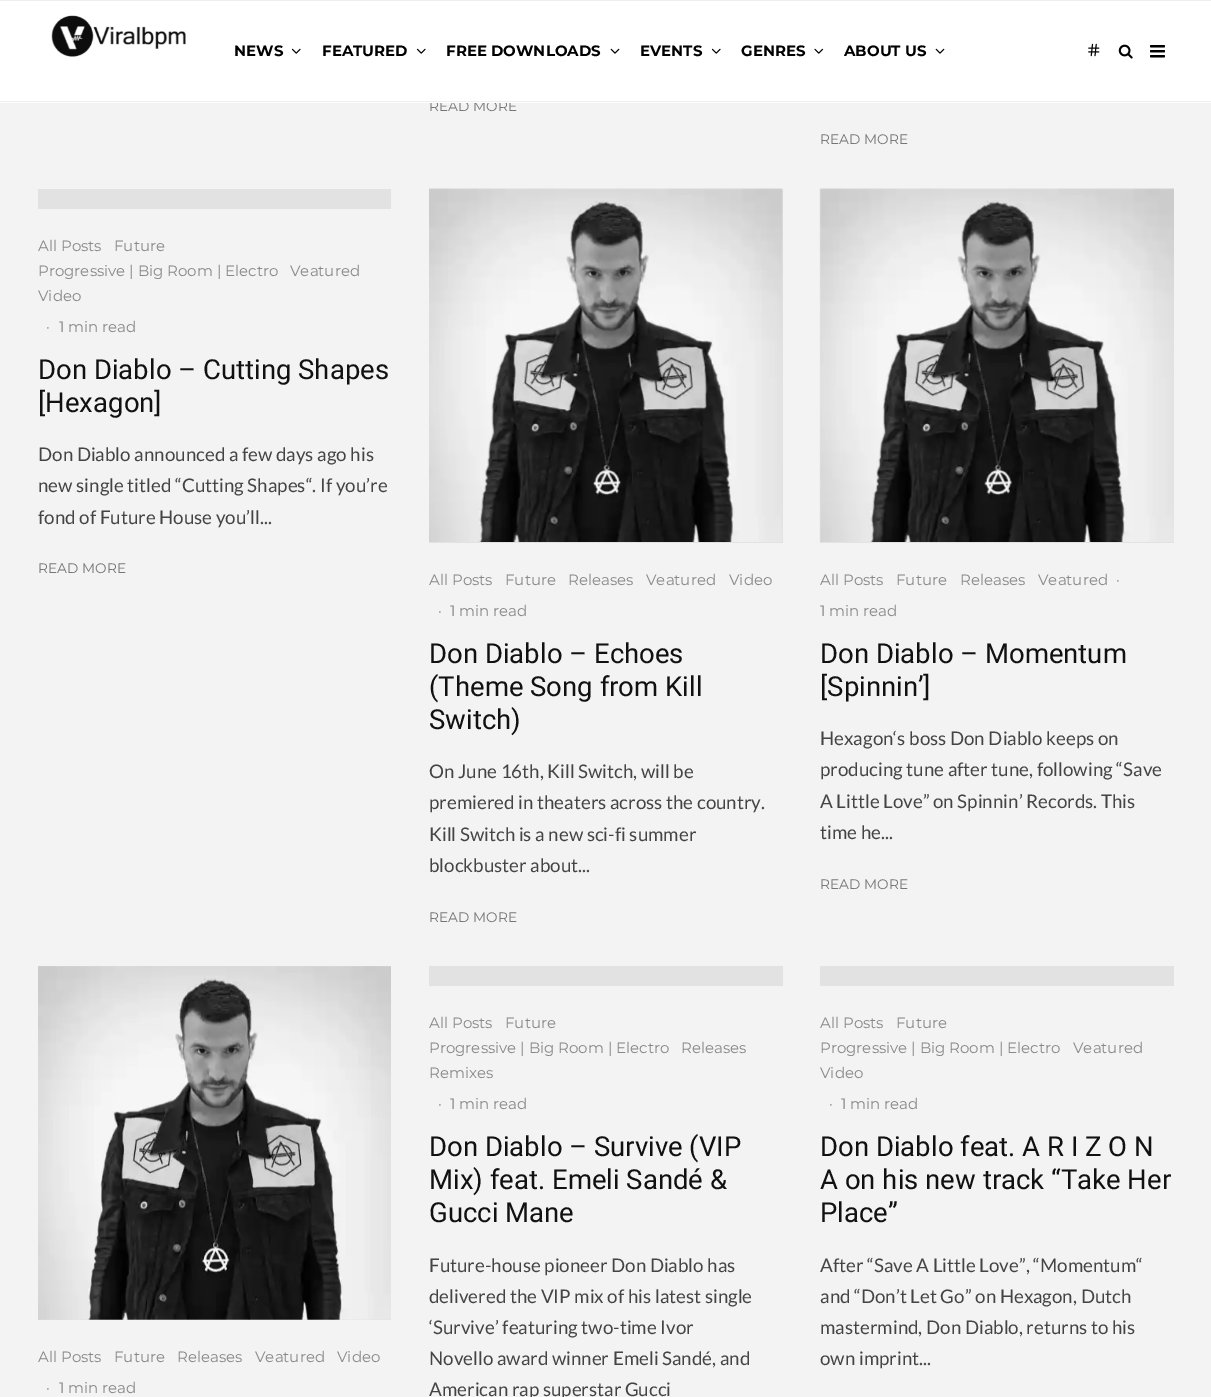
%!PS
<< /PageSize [1211 1397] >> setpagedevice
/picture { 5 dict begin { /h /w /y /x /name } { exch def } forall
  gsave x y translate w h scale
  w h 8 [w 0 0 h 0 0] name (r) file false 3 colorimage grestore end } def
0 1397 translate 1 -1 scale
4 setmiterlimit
0.953 setgray
0 0 1211 1397 rectfill
/Montserrat-Regular [13.75 0 0 -13.75 0 0] selectfont
0.463 setgray
429 111 moveto (READ MORE) show
1 setgray
0 1 1211 102 rectfill
0.933 setgray
0 0 1211 1 rectfill
0 101 1211 1 rectfill
(img1.rgb) 51 15 135 42 picture
/Montserrat-Bold [15 0 0 -15 0 0] selectfont
0 setgray
234 56 moveto (NEWS) show
(img2.rgb) 291 48 10 6 picture
322 56 moveto (FEATURED) show
(img2.rgb) 416 48 10 6 picture
446 56 moveto (FREE DOWNLOADS) show
(img3.rgb) 610 48 10 6 picture
640 56 moveto (EVENTS) show
(img2.rgb) 711 48 10 6 picture
741 56 moveto (GENRES) show
(img4.rgb) 814 48 10 6 picture
844 56 moveto (ABOUT US) show
(img3.rgb) 935 48 10 6 picture
(img5.rgb) 1088 43 12 14 picture
(img6.rgb) 1118 44 15 15 picture
(img7.rgb) 1150 45 15 13 picture
/Montserrat-Regular [13.75 0 0 -13.75 0 0] selectfont
0.463 setgray
820 144 moveto (READ MORE) show
0.886 setgray
38 189 353 20 rectfill
/Montserrat-Regular [15 0 0 -15 0 0] selectfont
0.533 setgray
38 251 moveto (All Posts) show
114 251 moveto (Future) show
38 276 moveto (Progressive | Big Room | Electro) show
290 276 moveto (Veatured) show
38 301 moveto (Video) show
46 332 moveto (·) show
59 332 moveto (1 min read) show
/Roboto-Regular [27.5 0 0 -27.5 0 0] selectfont
0.067 setgray
38 379 moveto (Don Diablo – Cutting Shapes) show
38 412 moveto ([Hexagon]) show
/Lato-Regular [18.75 0 0 -18.75 0 0] selectfont
0.267 setgray
38 461 moveto (Don Diablo announced a few days ago his) show
38 492 moveto (new single titled “Cutting Shapes“. If you’re) show
38 524 moveto (fond of Future House you’ll...) show
/Montserrat-Regular [13.75 0 0 -13.75 0 0] selectfont
0.463 setgray
38 573 moveto (READ MORE) show
0.886 setgray
429 189 354 354 rectfill
(img8.rgb) 429 188 354 354 picture
/Montserrat-Regular [15 0 0 -15 0 0] selectfont
0.533 setgray
429 585 moveto (All Posts) show
505 585 moveto (Future) show
568 585 moveto (Releases) show
646 585 moveto (Veatured) show
729 585 moveto (Video) show
438 616 moveto (·) show
450 616 moveto (1 min read) show
/Roboto-Regular [27.5 0 0 -27.5 0 0] selectfont
0.067 setgray
429 663 moveto (Don Diablo – Echoes) show
429 696 moveto (\(Theme Song from Kill) show
429 729 moveto (Switch\)) show
/Lato-Regular [18.75 0 0 -18.75 0 0] selectfont
0.267 setgray
429 778 moveto (On June 16th, Kill Switch, will be) show
429 809 moveto (premiered in theaters across the country.) show
429 841 moveto (Kill Switch is a new sci-fi summer) show
429 872 moveto (blockbuster about...) show
/Montserrat-Regular [13.75 0 0 -13.75 0 0] selectfont
0.463 setgray
429 922 moveto (READ MORE) show
0.886 setgray
820 189 354 354 rectfill
(img9.rgb) 819 188 355 354 picture
/Montserrat-Regular [15 0 0 -15 0 0] selectfont
0.533 setgray
820 585 moveto (All Posts) show
896 585 moveto (Future) show
960 585 moveto (Releases) show
1038 585 moveto (Veatured) show
1116 585 moveto (·) show
820 616 moveto (1 min read) show
/Roboto-Regular [27.5 0 0 -27.5 0 0] selectfont
0.067 setgray
820 663 moveto (Don Diablo – Momentum) show
820 696 moveto ([Spinnin’]) show
/Lato-Regular [18.75 0 0 -18.75 0 0] selectfont
0.267 setgray
820 745 moveto (Hexagon‘s boss Don Diablo keeps on) show
820 776 moveto (producing tune after tune, following “Save) show
820 808 moveto (A Little Love” on Spinnin’ Records. This) show
820 839 moveto (time he...) show
/Montserrat-Regular [13.75 0 0 -13.75 0 0] selectfont
0.463 setgray
820 889 moveto (READ MORE) show
0.886 setgray
38 966 353 354 rectfill
(img10.rgb) 38 966 353 354 picture
/Montserrat-Regular [15 0 0 -15 0 0] selectfont
0.533 setgray
38 1362 moveto (All Posts) show
114 1362 moveto (Future) show
177 1362 moveto (Releases) show
255 1362 moveto (Veatured) show
337 1362 moveto (Video) show
46 1393 moveto (·) show
59 1393 moveto (1 min read) show
0.886 setgray
429 966 354 20 rectfill
0.533 setgray
429 1028 moveto (All Posts) show
505 1028 moveto (Future) show
429 1053 moveto (Progressive | Big Room | Electro) show
681 1053 moveto (Releases) show
429 1078 moveto (Remixes) show
438 1109 moveto (·) show
450 1109 moveto (1 min read) show
/Roboto-Regular [27.5 0 0 -27.5 0 0] selectfont
0.067 setgray
429 1156 moveto (Don Diablo – Survive \(VIP) show
429 1189 moveto (Mix\) feat. Emeli Sandé &) show
429 1222 moveto (Gucci Mane) show
/Lato-Regular [18.75 0 0 -18.75 0 0] selectfont
0.267 setgray
429 1272 moveto (Future-house pioneer Don Diablo has) show
429 1303 moveto (delivered the VIP mix of his latest single) show
429 1334 moveto (‘Survive’ featuring two-time Ivor) show
429 1365 moveto (Novello award winner Emeli Sandé, and) show
429 1396 moveto (American rap superstar Gucci) show
0.886 setgray
820 966 354 20 rectfill
/Montserrat-Regular [15 0 0 -15 0 0] selectfont
0.533 setgray
820 1028 moveto (All Posts) show
896 1028 moveto (Future) show
820 1053 moveto (Progressive | Big Room | Electro) show
1073 1053 moveto (Veatured) show
820 1078 moveto (Video) show
829 1109 moveto (·) show
841 1109 moveto (1 min read) show
/Roboto-Regular [27.5 0 0 -27.5 0 0] selectfont
0.067 setgray
820 1156 moveto (Don Diablo feat. A R I Z O N) show
820 1189 moveto (A on his new track “Take Her) show
820 1222 moveto (Place”) show
/Lato-Regular [18.75 0 0 -18.75 0 0] selectfont
0.267 setgray
820 1272 moveto (After “Save A Little Love”, “Momentum“) show
820 1303 moveto (and “Don’t Let Go” on Hexagon, Dutch) show
820 1334 moveto (mastermind, Don Diablo, returns to his) show
820 1365 moveto (own imprint...) show
showpage
